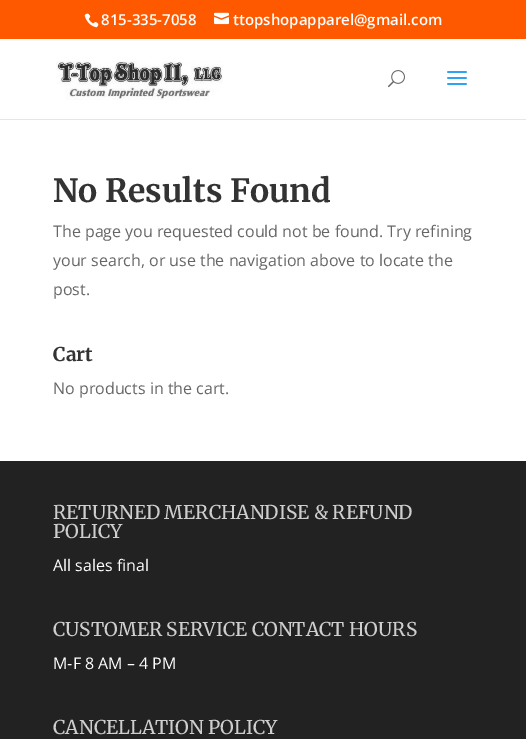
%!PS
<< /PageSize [526 739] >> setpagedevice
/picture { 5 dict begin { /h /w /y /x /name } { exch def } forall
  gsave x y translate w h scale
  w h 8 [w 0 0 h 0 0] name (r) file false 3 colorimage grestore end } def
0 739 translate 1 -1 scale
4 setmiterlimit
1 setgray
0 0 526 739 rectfill
1 0.349 0 setrgbcolor
0 0 526 39 rectfill
(img1.rgb) 84 13 15 15 picture
/OpenSans-SemiBold [15 0 0 -15 0 0] selectfont
1 setgray
101 25 moveto (815-335-7058) show
(img2.rgb) 214 12 15 13 picture
233 25 moveto (ttopshopapparel@gmail.com) show
0.902 setgray
0 119 526 1 rectfill
(img3.rgb) 56 61 167 39 picture
(img4.rgb) 388 70 17 18 picture
(img5.rgb) 447 71 20 14 picture
/Merriweather-Light [32 0 0 -32 0 0] selectfont
0.2 setgray
53 202 moveto (No Results Found) show
/OpenSans-Regular [16 0 0 -16 0 0] selectfont
0.4 setgray
53 237 moveto (The page you requested could not be found. Try refining) show
53 266 moveto (your search, or use the navigation above to locate the) show
53 295 moveto (post.) show
/Merriweather-Light [19 0 0 -19 0 0] selectfont
0.2 setgray
53 361 moveto (Cart) show
/OpenSans-Regular [16 0 0 -16 0 0] selectfont
0.4 setgray
53 394 moveto (No products in the cart.) show
0.133 setgray
0 461 526 278 rectfill
/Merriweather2-Light [19 0 0 -19 0 0] selectfont
0.808 setgray
53 519 moveto (RETURNED MERCHANDISE & REFUND) show
53 538 moveto (POLICY) show
/OpenSans-Regular [16 0 0 -16 0 0] selectfont
1 setgray
53 571 moveto (All sales final) show
/Merriweather2-Light [19 0 0 -19 0 0] selectfont
0.808 setgray
53 636 moveto (CUSTOMER SERVICE CONTACT HOURS) show
/OpenSans-Regular [16 0 0 -16 0 0] selectfont
1 setgray
53 669 moveto (M-F 8 AM – 4 PM) show
/Merriweather2-Light [19 0 0 -19 0 0] selectfont
0.808 setgray
53 734 moveto (CANCELLATION POLICY) show
showpage
